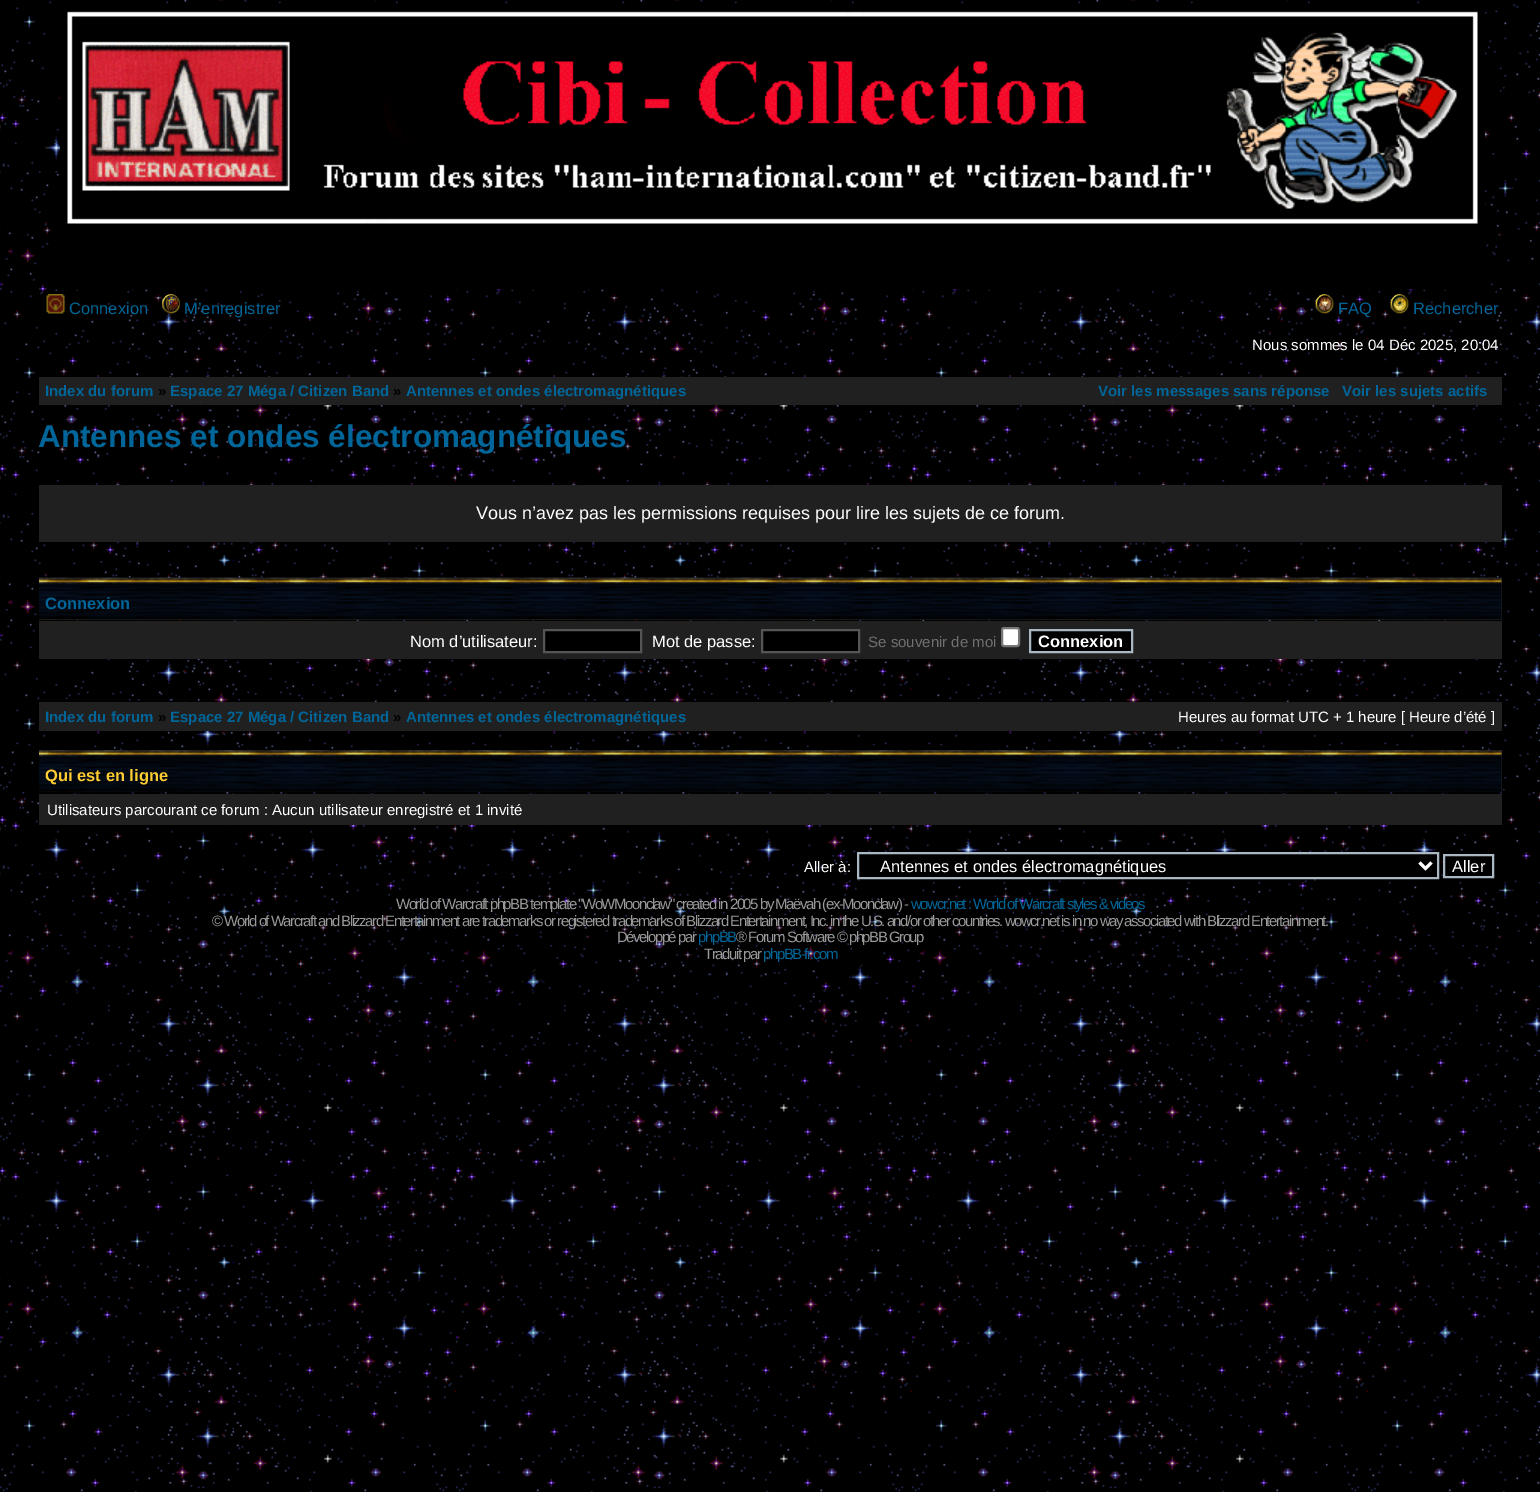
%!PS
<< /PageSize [1540 1492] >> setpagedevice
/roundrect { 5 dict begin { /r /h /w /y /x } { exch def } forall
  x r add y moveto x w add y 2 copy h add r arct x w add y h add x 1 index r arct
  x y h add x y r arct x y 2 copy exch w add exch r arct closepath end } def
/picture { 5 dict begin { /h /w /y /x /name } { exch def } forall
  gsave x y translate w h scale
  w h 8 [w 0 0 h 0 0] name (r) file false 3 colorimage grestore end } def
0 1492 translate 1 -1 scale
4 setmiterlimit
1 setgray
0 0 1540 1492 rectfill
(img1.rgb) 0 0 1540 1492 picture
(img2.rgb) 60 4 1425 286 picture
(img3.rgb) 46 294 19 20 picture
/LiberationSans-Regular [16.5 0 0 -16.5 0 0] selectfont
0 0.4 0.6 setrgbcolor
69 314 moveto (Connexion) show
(img4.rgb) 162 294 18 20 picture
184 314 moveto (M’enregistrer) show
(img5.rgb) 1315 294 19 20 picture
1338 314 moveto (FAQ) show
(img6.rgb) 1390 294 19 20 picture
1413 314 moveto (Rechercher) show
/LiberationSans-Regular [15 0 0 -15 0 0] selectfont
1 setgray
1252 350 moveto (Nous sommes le 04 Déc 2025, 20:04) show
0.125 setgray
39 377 1463 28 rectfill
/LiberationSans-Bold [15 0 0 -15 0 0] selectfont
0 0.4 0.6 setrgbcolor
45 396 moveto (Index du forum) show
0 setgray
158 396 moveto (») show
0 0.4 0.6 setrgbcolor
170 396 moveto (Espace 27 Méga / Citizen Band) show
0 setgray
393 396 moveto (») show
0 0.4 0.6 setrgbcolor
406 396 moveto (Antennes et ondes électromagnétiques) show
1098 396 moveto (Voir les messages sans réponse) show
1342 396 moveto (Voir les sujets actifs) show
/LiberationSans-Bold [31.5 0 0 -31.5 0 0] selectfont
38 447 moveto (Antennes et ondes électromagnétiques) show
0.125 setgray
39 485 1463 57 rectfill
/LiberationSans-Regular [18 0 0 -18 0 0] selectfont
1 setgray
476 519 moveto (Vous n’avez pas les permissions requises pour lire les sujets de ce forum.) show
0.125 setgray
39 578 1463 42 rectfill
(img7.rgb) 39 577 1463 43 picture
/LiberationSans-Bold [16.5 0 0 -16.5 0 0] selectfont
0 0.4 0.6 setrgbcolor
45 609 moveto (Connexion) show
0.125 setgray
39 621 1463 38 rectfill
/LiberationSans-Regular [16.5 0 0 -16.5 0 0] selectfont
1 setgray
410 647 moveto (Nom d’utilisateur:) show
0 setgray
newpath 544 630 moveto 641 630 lineto 641 652 lineto 544 652 lineto closepath gsave fill grestore
0.333 setgray
2 setlinewidth
stroke
1 setgray
652 647 moveto (Mot de passe:) show
0 setgray
newpath 762 630 moveto 859 630 lineto 859 652 lineto 762 652 lineto closepath gsave fill grestore
0.333 setgray
stroke
/LiberationSans-Regular [15 0 0 -15 0 0] selectfont
0.439 setgray
868 647 moveto (Se souvenir de moi) show
1 setgray
1002 628 17 18 2 roundrect gsave fill grestore
0.463 setgray
stroke
0 setgray
newpath 1030 630 moveto 1132 630 lineto 1132 652 lineto 1030 652 lineto closepath gsave fill grestore
0.663 0.722 0.761 setrgbcolor
stroke
/LiberationSans-Bold [16.5 0 0 -16.5 0 0] selectfont
1 setgray
1038 647 moveto (Connexion) show
0.125 setgray
39 702 1463 29 rectfill
/LiberationSans-Bold [15 0 0 -15 0 0] selectfont
0 0.4 0.6 setrgbcolor
45 722 moveto (Index du forum) show
0 setgray
158 722 moveto (») show
0 0.4 0.6 setrgbcolor
170 722 moveto (Espace 27 Méga / Citizen Band) show
0 setgray
393 722 moveto (») show
0 0.4 0.6 setrgbcolor
406 722 moveto (Antennes et ondes électromagnétiques) show
/LiberationSans-Regular [15 0 0 -15 0 0] selectfont
1 setgray
1178 722 moveto (Heures au format UTC + 1 heure [ Heure d’été ]) show
0.125 setgray
1501 750 1 42 rectfill
(img8.rgb) 39 750 1463 42 picture
/LiberationSans-Bold [16.5 0 0 -16.5 0 0] selectfont
1 0.8 0.2 setrgbcolor
45 781 moveto (Qui est en ligne) show
0.125 setgray
39 794 1463 31 rectfill
/LiberationSans-Regular [15 0 0 -15 0 0] selectfont
1 setgray
47 815 moveto (Utilisateurs parcourant ce forum : Aucun utilisateur enregistré et 1 invité) show
804 872 moveto (Aller à:) show
0 setgray
865 854 562 23 rectfill
0.663 0.722 0.761 setrgbcolor
858 853 580 25 rectstroke
1 setgray
3 setlinewidth
newpath 1419.5 862.5 moveto 1425.5 868.5 lineto 1431.5 862.5 lineto stroke
/LiberationSans-Regular [16.5 0 0 -16.5 0 0] selectfont
880 872 moveto (Antennes et ondes électromagnétiques) show
0 setgray
1445 857 38 19 rectfill
0.663 0.722 0.761 setrgbcolor
2 setlinewidth
1444 855 49 22 rectstroke
1 setgray
1452 872 moveto (Aller) show
/LiberationSans-Regular [15 0 0 -15 0 0] selectfont
0.6 setgray
396 909 moveto -1.5 0 (World of Warcraft phpBB template "WoWMoonclaw" created in 2005 by Maëvah \(ex-Moonclaw\) -) ashow
0 0.4 0.6 setrgbcolor
911 909 moveto -1.5 0 (wowcr.net : World of Warcraft styles & videos) ashow
0.6 setgray
212 926 moveto -1.5 0 (© World of Warcraft and Blizzard Entertainment are trademarks or registered trademarks of Blizzard Entertainment, Inc. in the U.S. and/or other countries. wowcr.net is in no way associated with Blizzard Entertainment.) ashow
617 942 moveto -1.5 0 (Développé par) ashow
0 0.4 0.6 setrgbcolor
698 942 moveto -1.5 0 (phpBB) ashow
0.6 setgray
736 942 moveto -1.5 0 (® Forum Software © phpBB Group) ashow
704 959 moveto -1.5 0 (Traduit par) ashow
0 0.4 0.6 setrgbcolor
763 959 moveto -1.5 0 (phpBB-fr.com) ashow
showpage
